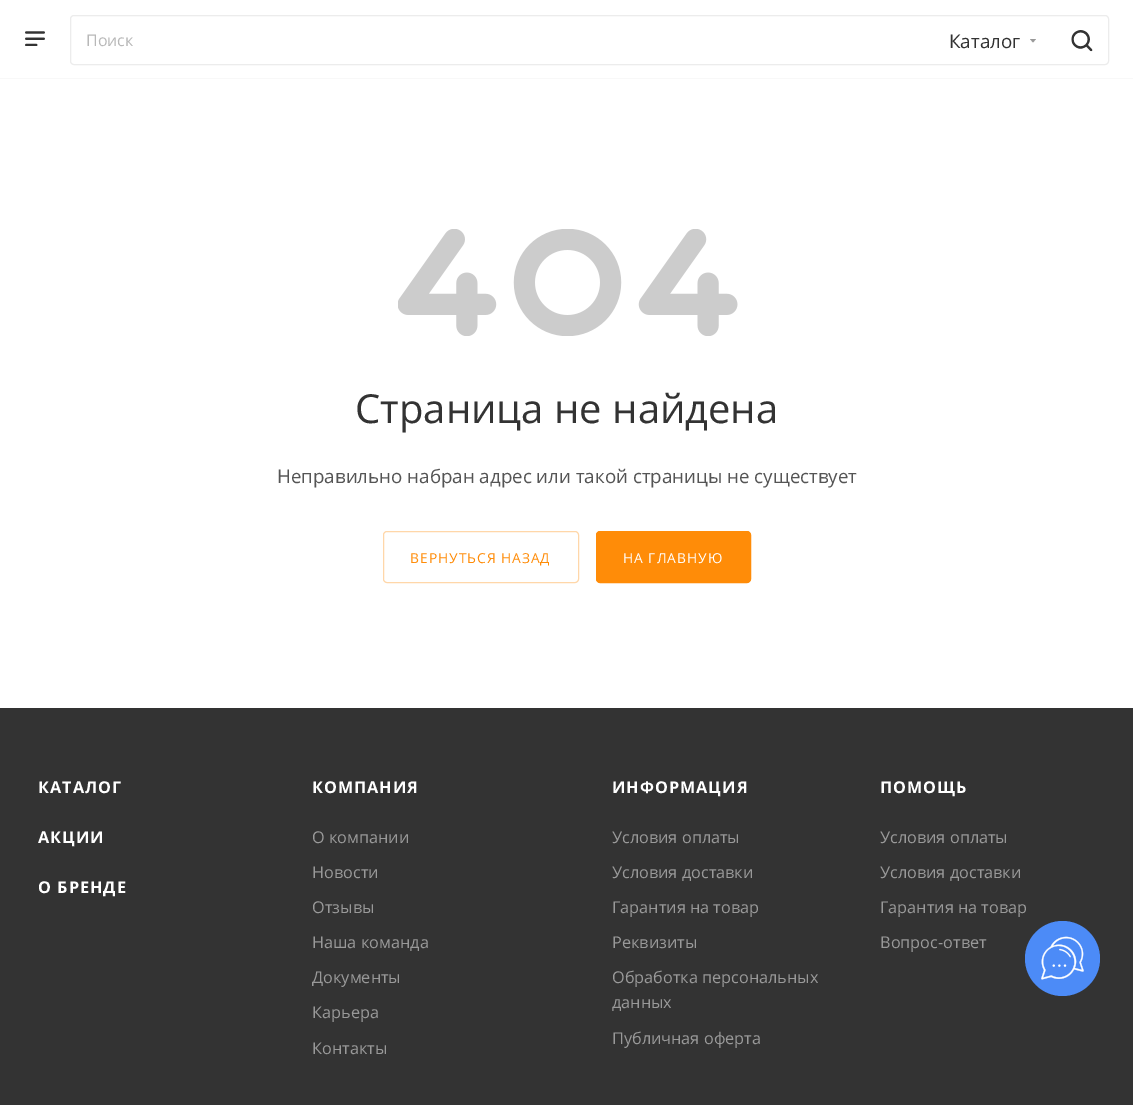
%!PS
<< /PageSize [1133 1105] >> setpagedevice
/roundrect { 5 dict begin { /r /h /w /y /x } { exch def } forall
  x r add y moveto x w add y 2 copy h add r arct x w add y h add x 1 index r arct
  x y h add x y r arct x y 2 copy exch w add exch r arct closepath end } def
/picture { 5 dict begin { /h /w /y /x /name } { exch def } forall
  gsave x y translate w h scale
  w h 8 [w 0 0 h 0 0] name (r) file false 3 colorimage grestore end } def
0 1105 translate 1 -1 scale
4 setmiterlimit
1 setgray
0 0 1133 1105 rectfill
0.973 setgray
0 78 1133 1 rectfill
(img1.rgb) 25 31 20 15 picture
0.925 setgray
70.5 15.5 1038 49 3.5 roundrect stroke
/OpenSans-Regular [16 0 0 -16 0 0] selectfont
0.722 setgray
86 46 moveto (Поиск) show
/OpenSans-Regular [18.75 0 0 -18.75 0 0] selectfont
0.2 setgray
949 48 moveto (Каталог) show
0.6 setgray
newpath 1030 39 moveto 1036 39 lineto 1033 42.5 lineto closepath eofill
(img2.rgb) 1071 30 22 22 picture
(img3.rgb) 398 229 340 107 picture
/OpenSans-Regular [40 0 0 -40 0 0] selectfont
0.2 setgray
355 423 moveto (Страница не найдена) show
/OpenSans-Regular [18.75 0 0 -18.75 0 0] selectfont
0.333 setgray
277 483 moveto (Неправильно набран адрес или такой страницы не существует) show
1 0.843 0.663 setrgbcolor
383.5 531.5 195 51 3.5 roundrect stroke
/OpenSans-Regular [13.75 0 0 -13.75 0 0] selectfont
1 0.549 0.031 setrgbcolor
410 563 moveto 1 0 (ВЕРНУТЬСЯ НАЗАД) ashow
596.5 531.5 154 51 3.5 roundrect gsave fill grestore
stroke
1 setgray
623 563 moveto 1 0 (НА ГЛАВНУЮ) ashow
0.2 setgray
0 708 1133 397 rectfill
/OpenSans-Bold [16.25 0 0 -16.25 0 0] selectfont
1 setgray
38 793 moveto 1 0 (КАТАЛОГ) ashow
38 843 moveto 1 0 (АКЦИИ) ashow
38 893 moveto 1 0 (О БРЕНДЕ) ashow
312 793 moveto 1 0 (КОМПАНИЯ) ashow
/OpenSans-Regular [16.25 0 0 -16.25 0 0] selectfont
0.6 setgray
312 843 moveto (О компании) show
312 878 moveto (Новости) show
312 913 moveto (Отзывы) show
312 948 moveto (Наша команда) show
312 983 moveto (Документы) show
312 1018 moveto (Карьера) show
312 1054 moveto (Контакты) show
/OpenSans-Bold [16.25 0 0 -16.25 0 0] selectfont
1 setgray
612 793 moveto 1 0 (ИНФОРМАЦИЯ) ashow
/OpenSans-Regular [16.25 0 0 -16.25 0 0] selectfont
0.6 setgray
612 843 moveto (Условия оплаты) show
612 878 moveto (Условия доставки) show
612 913 moveto (Гарантия на товар) show
612 948 moveto (Реквизиты) show
612 983 moveto (Обработка персональных) show
612 1008 moveto (данных) show
612 1044 moveto (Публичная оферта) show
/OpenSans-Bold [16.25 0 0 -16.25 0 0] selectfont
1 setgray
880 793 moveto 1 0 (ПОМОЩЬ) ashow
/OpenSans-Regular [16.25 0 0 -16.25 0 0] selectfont
0.6 setgray
880 843 moveto (Условия оплаты) show
880 878 moveto (Условия доставки) show
880 913 moveto (Гарантия на товар) show
880 948 moveto (Вопрос-ответ) show
0.298 0.545 0.969 setrgbcolor
newpath 1062.5 958.5 37.5 0 360 arc closepath fill
(img4.rgb) 1041 936 43 44 picture
showpage
